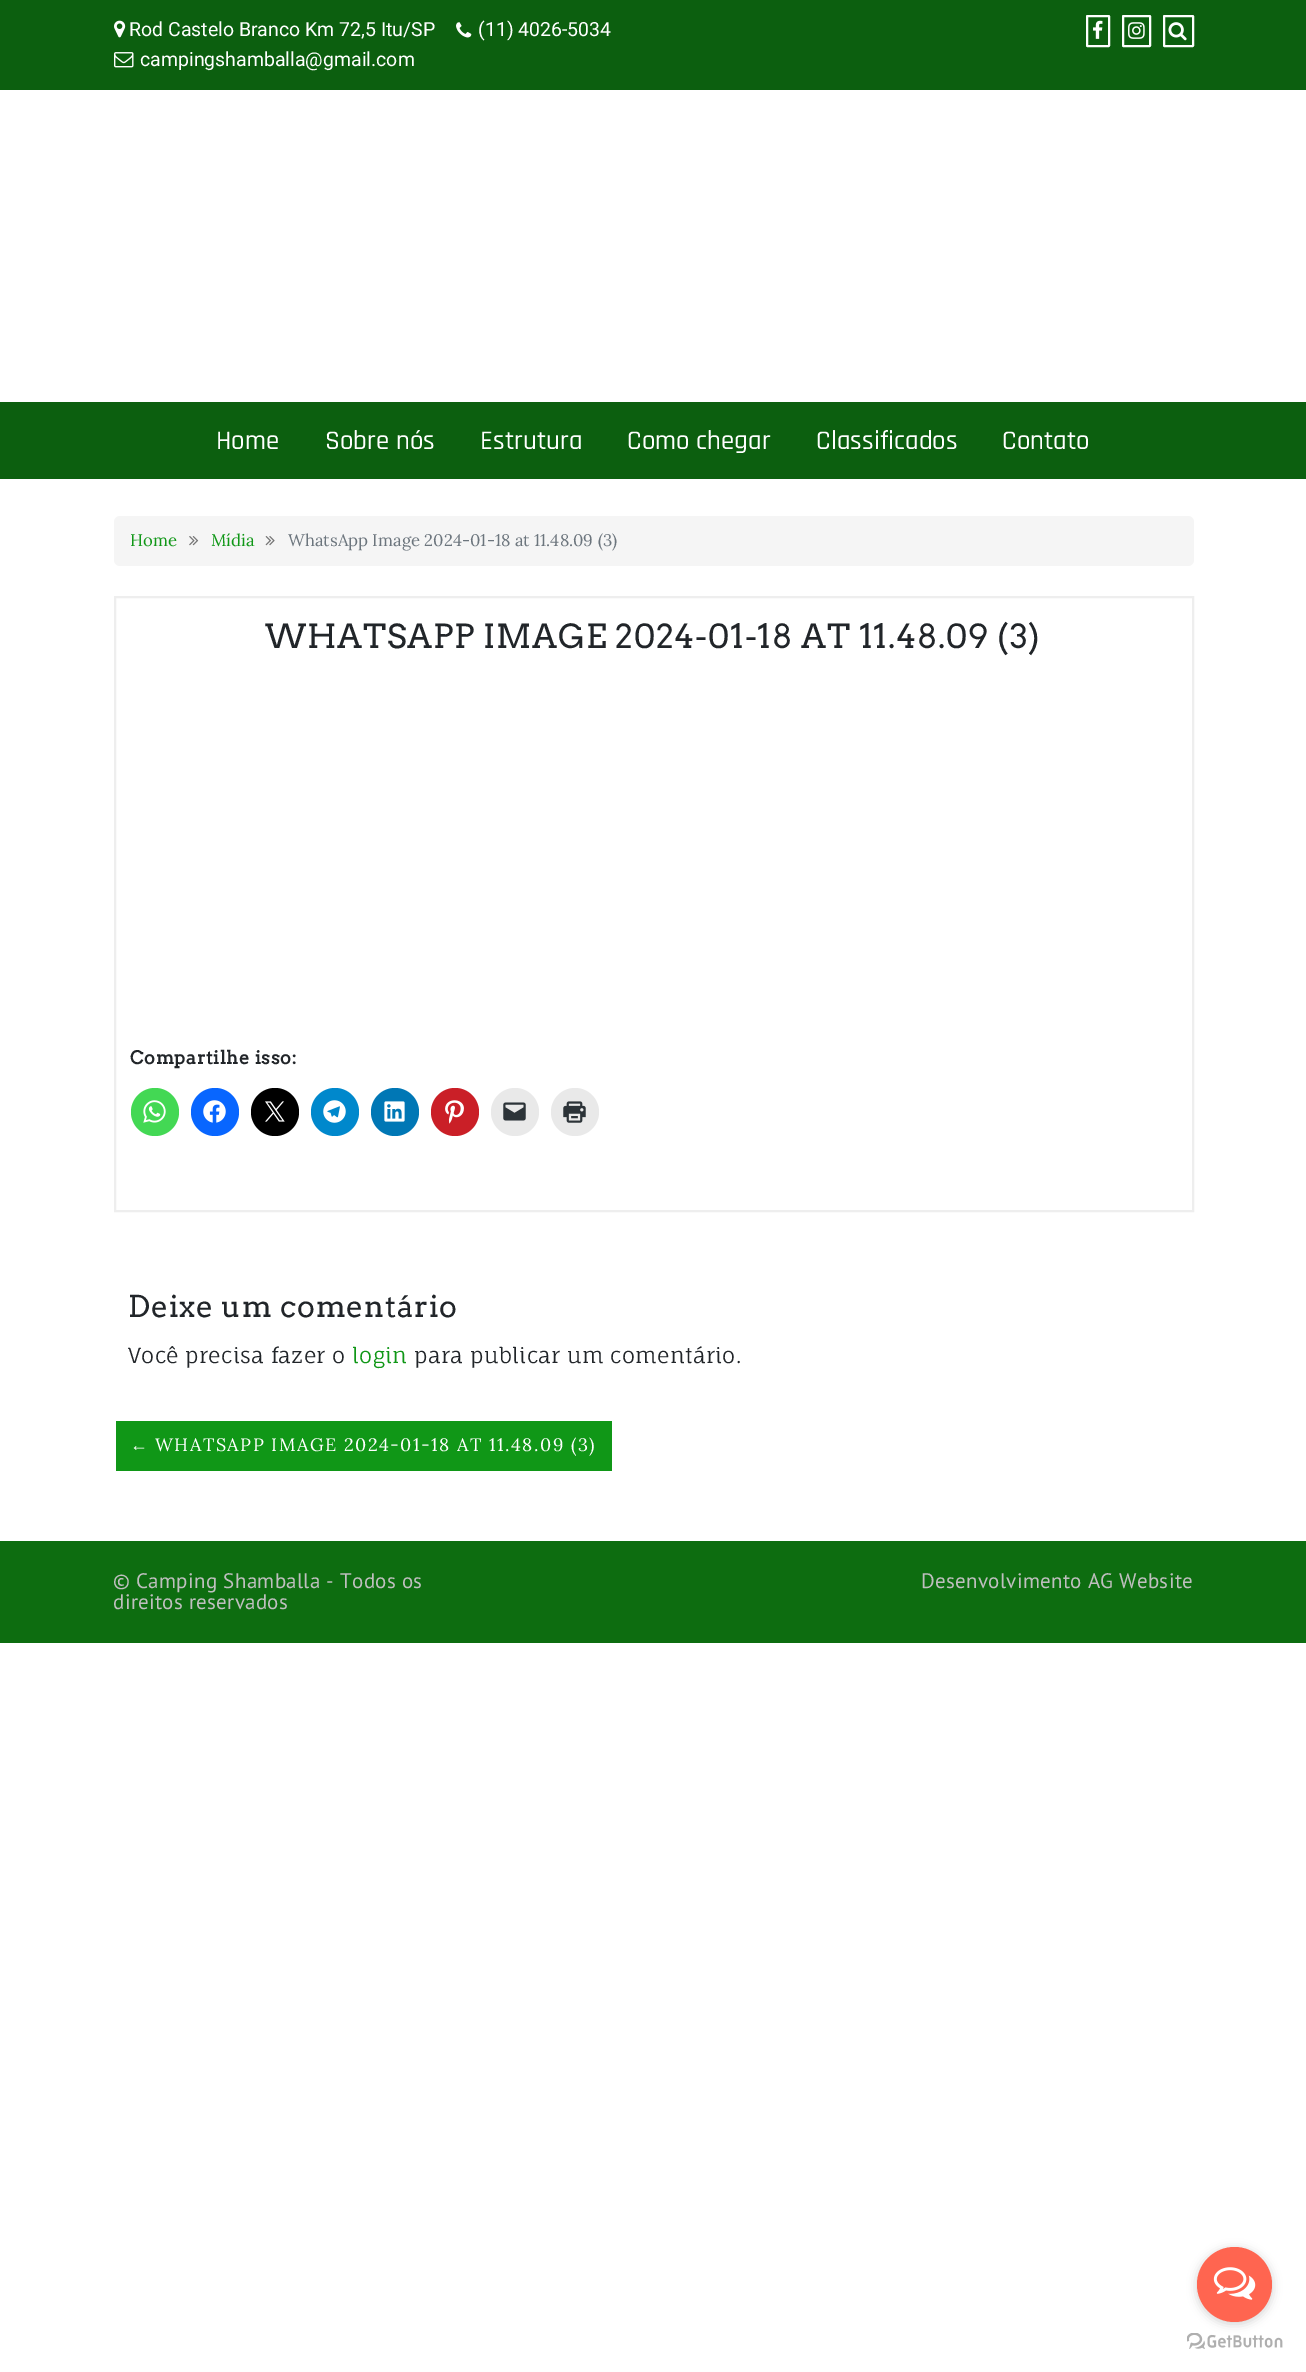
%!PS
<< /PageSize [1306 2372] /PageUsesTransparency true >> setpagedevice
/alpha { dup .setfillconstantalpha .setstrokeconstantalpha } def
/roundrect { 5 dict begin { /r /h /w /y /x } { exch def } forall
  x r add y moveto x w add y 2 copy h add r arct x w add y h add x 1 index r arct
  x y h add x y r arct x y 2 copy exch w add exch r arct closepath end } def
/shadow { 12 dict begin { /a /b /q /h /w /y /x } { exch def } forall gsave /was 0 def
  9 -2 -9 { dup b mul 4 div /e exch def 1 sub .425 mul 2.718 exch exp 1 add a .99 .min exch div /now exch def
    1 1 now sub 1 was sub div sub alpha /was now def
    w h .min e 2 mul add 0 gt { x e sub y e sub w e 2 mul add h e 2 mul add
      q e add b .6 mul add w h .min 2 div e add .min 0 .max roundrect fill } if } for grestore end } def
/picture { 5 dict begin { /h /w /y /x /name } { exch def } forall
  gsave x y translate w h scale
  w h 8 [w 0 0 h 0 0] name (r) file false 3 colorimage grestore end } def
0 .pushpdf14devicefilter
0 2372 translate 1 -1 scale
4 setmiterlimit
1 setgray
0 0 1306 2372 rectfill
0.047 0.373 0.059 setrgbcolor
0 0 1306 90 rectfill
(img1.rgb) 114 20 12 18 picture
/Roboto-Regular [19.5 0 0 -19.5 0 0] selectfont
1 setgray
129 36 moveto (Rod Castelo Branco Km 72,5 Itu/SP) show
(img2.rgb) 456 22 16 16 picture
478 36 moveto (\(11\) 4026-5034) show
(img3.rgb) 114 52 20 16 picture
140 66 moveto (campingshamballa@gmail.com) show
2 setlinewidth
1087 16 22 30 0.5 roundrect stroke
(img4.rgb) 1093 20 10 19 picture
1123 16 27 30 0.5 roundrect stroke
(img5.rgb) 1128 22 17 17 picture
1164 16 29 30 0.5 roundrect stroke
(img6.rgb) 1168 22 19 19 picture
0.047 0.373 0.059 setrgbcolor
0 402 1306 77 rectfill
/Rajdhani-Medium [27 0 0 -27 0 0] selectfont
1 setgray
216 449 moveto (Home) show
325 449 moveto (Sobre nós) show
480 449 moveto (Estrutura) show
627 449 moveto (Como chegar) show
816 449 moveto (Classificados) show
1002 449 moveto (Contato) show
0.961 setgray
114 516 1080 50 6 roundrect fill
/Lora-Regular [16.75 0 0 -16.75 0 0] selectfont
0.063 0.592 0.09 setrgbcolor
130 546 moveto (Home) show
(img7.rgb) 189 536 10 10 picture
211 546 moveto (Mídia) show
(img8.rgb) 265 536 10 10 picture
0.424 0.459 0.49 setrgbcolor
288 546 moveto (WhatsApp Image 2024-01-18 at 11.48.09 \(3\)) show
0.933 setgray
115 597 1078 614 rectstroke
/Arvo-Regular [33 0 0 -33 0 0] selectfont
0.129 0.145 0.161 setrgbcolor
265 648 moveto 0.75 0 (WHATSAPP IMAGE 2024-01-18 AT 11.48.09 \(3\)) ashow
/Arvo-Bold [18 0 0 -18 0 0] selectfont
130 1064 moveto 0.75 0 (Compartilhe isso:) ashow
0.263 0.847 0.329 setrgbcolor
newpath 155 1112 24 0 360 arc closepath fill
(img9.rgb) 143 1100 23 23 picture
0.031 0.4 1 setrgbcolor
newpath 215 1112 24 0 360 arc closepath fill
(img10.rgb) 203 1100 23 23 picture
0 setgray
newpath 275 1112 24 0 360 arc closepath fill
(img11.rgb) 265 1101 20 21 picture
0 0.533 0.8 setrgbcolor
newpath 335 1112 24 0 360 arc closepath fill
(img12.rgb) 323 1100 23 23 picture
0 0.467 0.71 setrgbcolor
newpath 395 1112 24 0 360 arc closepath fill
(img13.rgb) 384 1101 21 21 picture
0.792 0.122 0.153 setrgbcolor
newpath 455 1112 24 0 360 arc closepath fill
(img14.rgb) 445 1100 19 24 picture
0.914 setgray
newpath 515 1112 24 0 360 arc closepath fill
(img15.rgb) 503 1102 23 19 picture
newpath 575 1112 24 0 360 arc closepath fill
(img16.rgb) 563 1101 23 22 picture
/Arvo-Regular [30 0 0 -30 0 0] selectfont
0.129 0.145 0.161 setrgbcolor
128 1317 moveto 0.75 0 (Deixe um comentário) ashow
/FaunaOne-Regular [21 0 0 -21 0 0] selectfont
128 1363 moveto 0.3 0 (Você precisa fazer o) ashow
0.063 0.592 0.09 setrgbcolor
352 1363 moveto 0.3 0 (login) ashow
0.129 0.145 0.161 setrgbcolor
414 1363 moveto 0.3 0 (para publicar um comentário.) ashow
0.063 0.592 0.09 setrgbcolor
116 1421 496 50 rectfill
/LiberationSerif-Regular [18 0 0 -18 0 0] selectfont
1 setgray
130 1451 moveto 1.5 0 (←) ashow
/Lora-Regular [18 0 0 -18 0 0] selectfont
155 1451 moveto 1.5 0 (WHATSAPP IMAGE 2024-01-18 AT 11.48.09 \(3\)) ashow
0.051 0.427 0.063 setrgbcolor
0 1541 1306 102 rectfill
/PTSans-Regular [21 0 0 -21 0 0] selectfont
0.749 setgray
113 1588 moveto 0.3 0 (© Camping Shamballa - Todos os) ashow
113 1609 moveto 0.3 0 (direitos reservados) ashow
921 1588 moveto 0.3 0 (Desenvolvimento AG Website) ashow
(img18.rgb) 1187 2333 96 16 picture
0.533 setgray
1197 2249 75 75 37.5 5 0.4 shadow
1 0.396 0.314 setrgbcolor
newpath 1234.5 2284.5 37.5 0 360 arc closepath fill
(img17.rgb) 1213 2267 43 33 picture
.poppdf14devicefilter showpage
